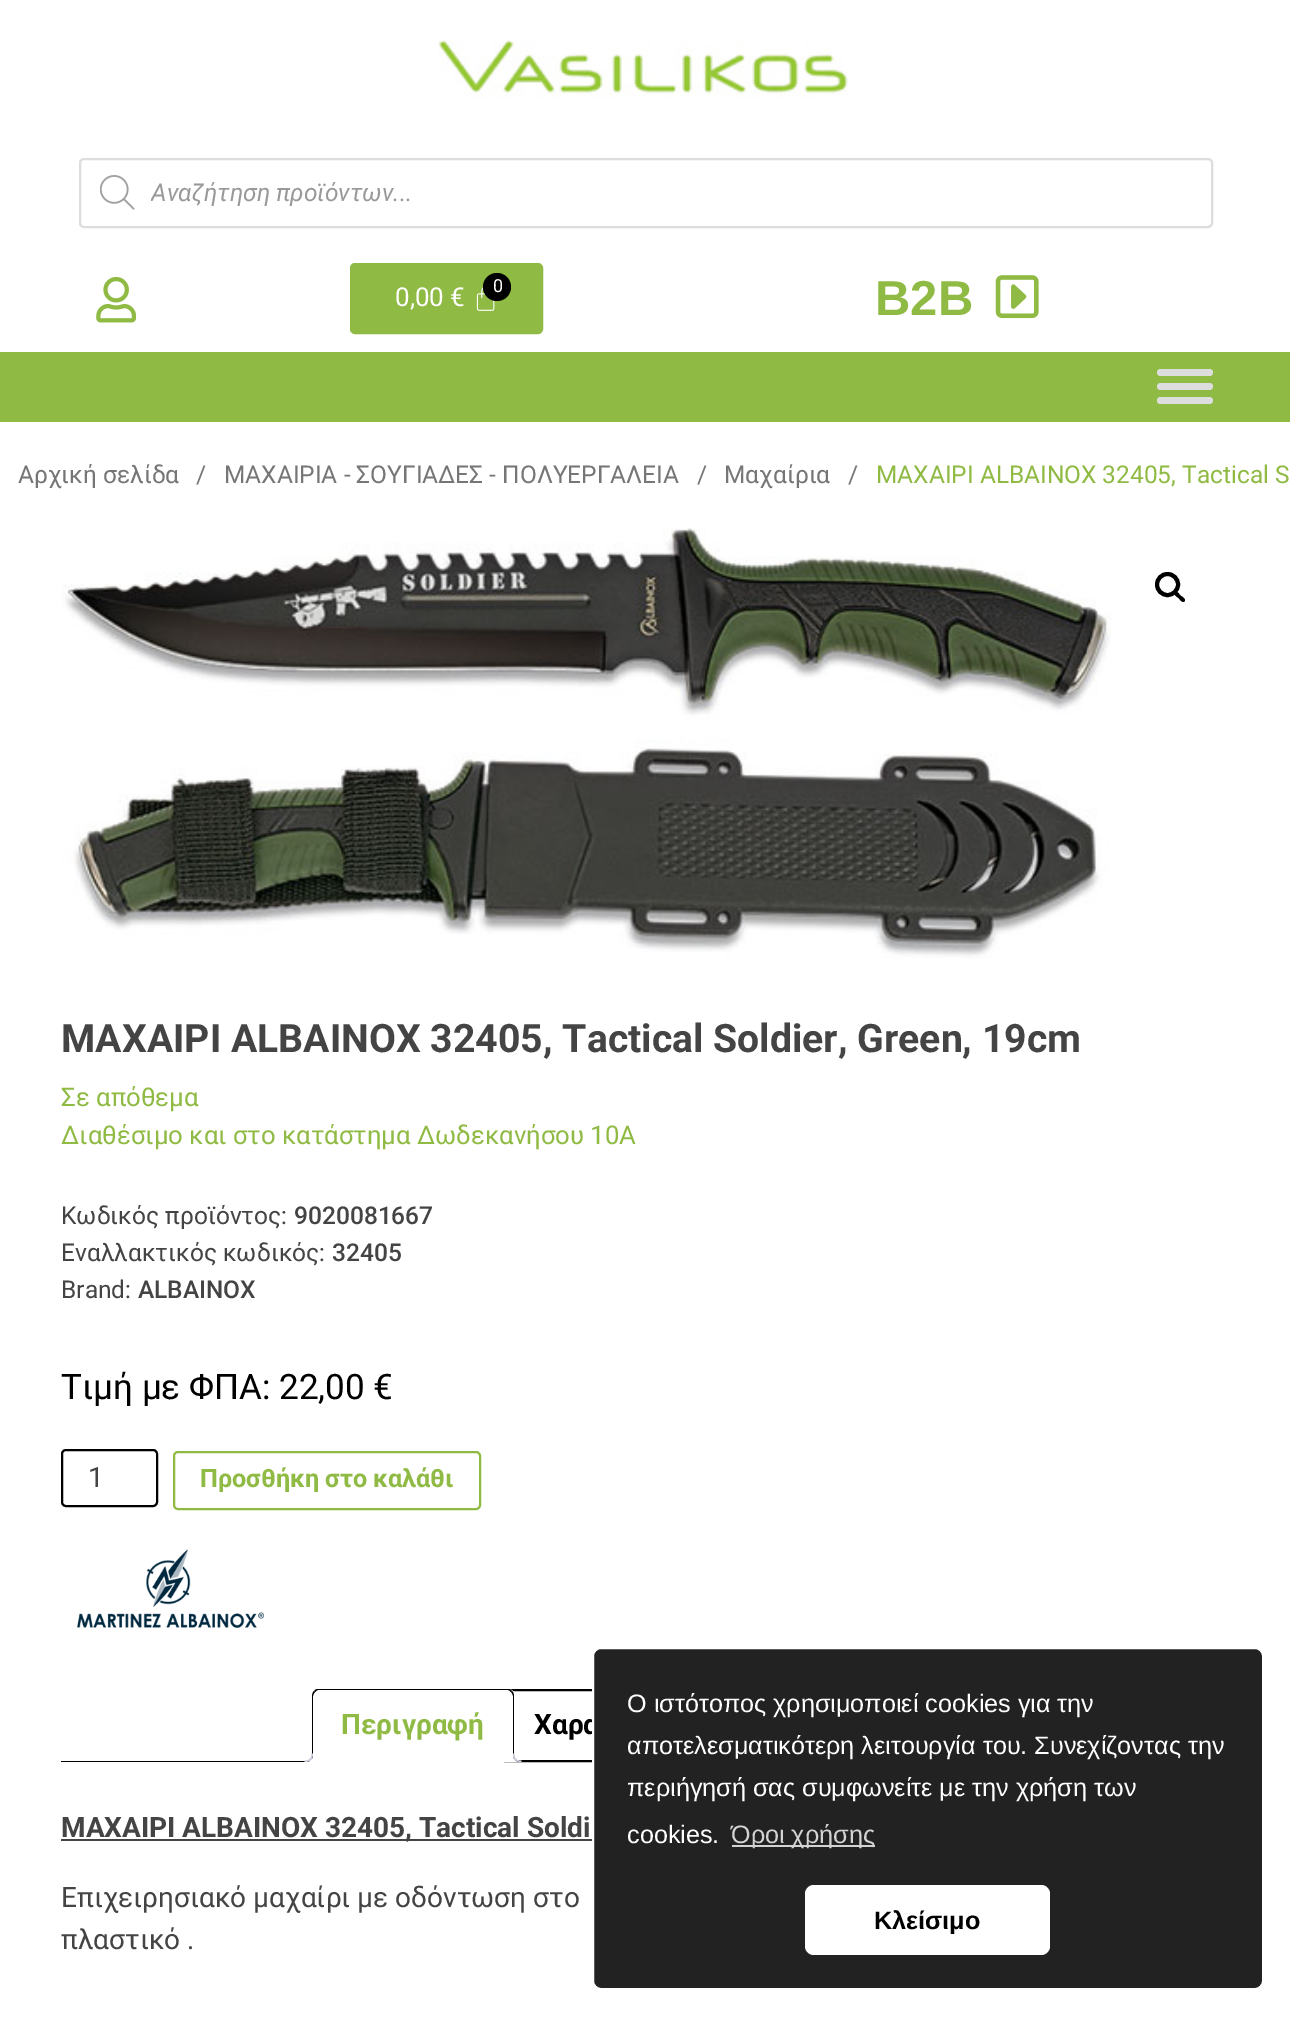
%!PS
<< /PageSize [1290 2017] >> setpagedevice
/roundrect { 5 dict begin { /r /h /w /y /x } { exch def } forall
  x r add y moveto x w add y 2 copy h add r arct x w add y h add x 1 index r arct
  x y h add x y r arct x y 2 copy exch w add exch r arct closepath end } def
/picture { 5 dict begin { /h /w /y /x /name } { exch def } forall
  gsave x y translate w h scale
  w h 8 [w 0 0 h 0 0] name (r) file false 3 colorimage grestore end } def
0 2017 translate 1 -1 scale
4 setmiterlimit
1 setgray
0 0 1290 2017 rectfill
(img1.rgb) 438 39 410 59 picture
0.867 setgray
2 setlinewidth
80 159 1132 68 4 roundrect stroke
(img2.rgb) 100 175 35 35 picture
gsave
151 179 1034 28 rectclip
/Roboto-Italic [24.5 0 0 -24.5 0 0] selectfont
0.6 setgray
151 201 moveto (Αναζήτηση προϊόντων...) show
grestore
(img3.rgb) 96 276 41 47 picture
0.561 0.729 0.263 setrgbcolor
351 264 191 69 4 roundrect gsave fill grestore
stroke
/Roboto-Regular [26 0 0 -26 0 0] selectfont
1 setgray
395 306 moveto (0,00 €) show
(img4.rgb) 476 287 19 24 picture
0 setgray
newpath 497 287 14 0 360 arc closepath fill
/Roboto-Regular [18 0 0 -18 0 0] selectfont
1 setgray
493 292 moveto (0) show
/LiberationSans-Bold [49 0 0 -49 0 0] selectfont
0.561 0.729 0.263 setrgbcolor
875 315 moveto (B2B) show
(img5.rgb) 995 275 44 44 picture
0 352 1290 70 rectfill
0.867 setgray
1157 369 56 7 3.5 roundrect fill
1157 383 56 7 3.5 roundrect fill
1157 397 56 7 3.5 roundrect fill
/Roboto-Regular [24.5 0 0 -24.5 0 0] selectfont
0.463 setgray
18 483 moveto (Αρχική σελίδα) show
196 483 moveto (/) show
224 483 moveto (ΜΑΧΑΙΡΙΑ - ΣΟΥΓΙΑΔΕΣ - ΠΟΛΥΕΡΓΑΛΕΙΑ) show
697 483 moveto (/) show
724 483 moveto (Μαχαίρια) show
848 483 moveto (/) show
0.561 0.729 0.263 setrgbcolor
876 483 moveto (ΜΑΧΑΙΡΙ ALBAINOX 32405, Tactical S) show
(img6.rgb) 62 528 1049 431 picture
0 setgray
4 setlinewidth
newpath 1167.5 584.5 10.5 0 360 arc closepath stroke
newpath 1174.5 592 moveto 1176.5 590 1179.5 594.5 1180.5 595.5 curveto 1182 596.5 1186.5 599.5 1184.5 601.5 curveto 1182.5 603.5 1179.5 599 1178.5 598 curveto 1177 597 1172.5 594 1174.5 592 curveto closepath fill
/Roboto-Bold [39.2 0 0 -39.2 0 0] selectfont
0.267 setgray
61 1052 moveto (ΜΑΧΑΙΡΙ ALBAINOX 32405, Tactical Soldier, Green, 19cm) show
/Roboto-Regular [25.75 0 0 -25.75 0 0] selectfont
0.561 0.729 0.263 setrgbcolor
61 1106 moveto (Σε απόθεμα) show
61 1144 moveto (Διαθέσιμο και στο κατάστημα Δωδεκανήσου 10Α) show
/Roboto-Regular [24.5 0 0 -24.5 0 0] selectfont
0.267 setgray
61 1224 moveto (Κωδικός προϊόντος:) show
/Roboto-Medium [24.5 0 0 -24.5 0 0] selectfont
294 1224 moveto (9020081667) show
/Roboto-Regular [24.5 0 0 -24.5 0 0] selectfont
61 1261 moveto (Εναλλακτικός κωδικός:) show
/Roboto-Medium [24.5 0 0 -24.5 0 0] selectfont
332 1261 moveto (32405) show
/Roboto-Regular [24.5 0 0 -24.5 0 0] selectfont
61 1298 moveto (Brand:) show
/Roboto-Medium [24.5 0 0 -24.5 0 0] selectfont
138 1298 moveto (ALBAINOX) show
/Roboto-Regular [35 0 0 -35 0 0] selectfont
0 setgray
61 1399 moveto (Τιμή με ΦΠΑ: 22,00 €) show
2 setlinewidth
62 1450 95 56 4 roundrect stroke
/Roboto-Regular [28 0 0 -28 0 0] selectfont
0.267 setgray
88 1487 moveto (1) show
0.561 0.729 0.263 setrgbcolor
174 1452 306 57 4 roundrect stroke
/Roboto-Bold [25.2 0 0 -25.2 0 0] selectfont
200 1487 moveto (Προσθήκη στο καλάθι) show
(img7.rgb) 77 1549 187 79 picture
0 setgray
newpath 511 1690 moveto 767 1690 lineto 770.5 1690 773 1692.5 773 1696 curveto 773 1761 lineto 505 1761 lineto 505 1696 lineto 505 1692.5 507.5 1690 511 1690 curveto closepath stroke
61 1761 443 1 rectfill
1 setgray
newpath 319 1689 moveto 508 1689 lineto 512 1689 515 1692 515 1696 curveto 515 1762 lineto 312 1762 lineto 312 1696 lineto 312 1692 315 1689 319 1689 curveto closepath fill
0 setgray
newpath 318 1689 moveto 316 1689 315 1690 314 1691 curveto 315 1692 lineto 316 1691 317 1690 318 1690 curveto 508 1690 lineto 509 1690 510 1691 511 1692 curveto 512 1691 lineto 511 1690 510 1689 508 1689 curveto closepath fill
newpath 514 1762 moveto 514 1696 lineto 514 1694 513 1692 512 1691 curveto 511 1692 lineto 512 1693 513 1695 513 1696 curveto 513 1760 lineto 512 1760 lineto closepath fill
1 setgray
newpath 514 1762 moveto 312 1762 lineto 314 1760 lineto 512 1760 lineto closepath fill
0 setgray
newpath 314 1691 moveto 313 1692 312 1694 312 1696 curveto 312 1762 lineto 314 1760 lineto 313 1760 lineto 313 1696 lineto 313 1695 314 1693 315 1692 curveto closepath fill
/Roboto-Bold [28 0 0 -28 0 0] selectfont
0.561 0.729 0.263 setrgbcolor
341 1734 moveto (Περιγραφή) show
gsave
61 1689 1169 73 rectclip
1 setgray
newpath 308 1762 moveto 308 1766 lineto 314.5 1766 317 1763.5 317 1757 curveto 313 1757 lineto 312.5 1759.5 310.5 1761.5 308 1762 curveto closepath fill
grestore
0.812 0.784 0.847 setrgbcolor
newpath 304.5 1753.5 moveto 313 1753.5 lineto 313 1759.5 310.5 1762 304.5 1762 curveto closepath 304.5 1753.5 moveto 311.5 1753.5 lineto 311.5 1758.5 309.5 1760.5 304.5 1760.5 curveto closepath eofill
gsave
61 1689 1169 73 rectclip
1 setgray
newpath 509 1757 moveto 509 1763.5 511.5 1766 518 1766 curveto 518 1762 lineto 515.5 1761.5 513.5 1759.5 513 1757 curveto closepath fill
grestore
newpath 513 1753.5 moveto 521.5 1753.5 lineto 521.5 1762 lineto 517 1762 513 1760.5 513 1755 curveto closepath 514.5 1753.5 moveto 521.5 1753.5 lineto 521.5 1760.5 lineto 518 1760.5 514.5 1759.5 514.5 1755 curveto closepath eofill
0 setgray
534 1734 moveto (Χαρα) show
0.267 setgray
61 1839 531 2 rectfill
61 1837 moveto (ΜΑΧΑΙΡΙ ALBAINOX 32405, Tactical Soldi) show
/Roboto-Regular [28 0 0 -28 0 0] selectfont
61 1907 moveto (Επιχειρησιακό μαχαίρι με οδόντωση στο) show
61 1949 moveto (πλαστικό .) show
0.133 setgray
593 1648 670 341 8 roundrect gsave fill grestore
1 setgray
stroke
/LiberationSans-Regular [25.2 0 0 -25.2 0 0] selectfont
627 1712 moveto (Ο ιστότοπος χρησιμοποιεί cookies για την) show
627 1754 moveto (αποτελεσματικότερη λειτουργία του. Συνεχίζοντας την) show
627 1796 moveto (περιήγησή σας συμφωνείτε με την χρήση των) show
627 1843 moveto (cookies.) show
0.827 setgray
732 1845 143 2 rectfill
731 1843 moveto (Όροι χρήσης) show
1 setgray
805 1885 245 70 9 roundrect fill
/LiberationSans-Bold [25.2 0 0 -25.2 0 0] selectfont
0 setgray
874 1929 moveto (Κλείσιμο) show
showpage
